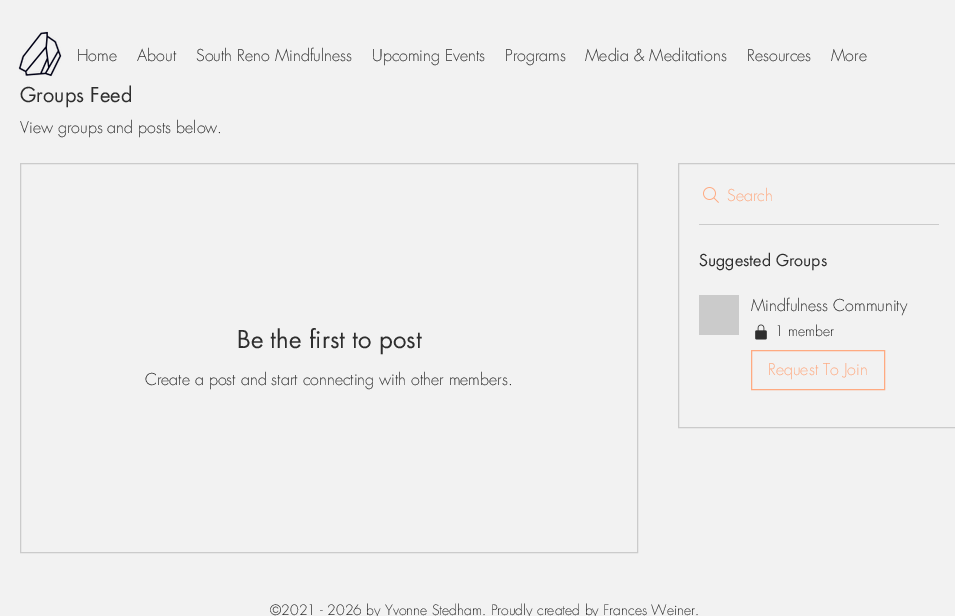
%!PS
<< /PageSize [955 616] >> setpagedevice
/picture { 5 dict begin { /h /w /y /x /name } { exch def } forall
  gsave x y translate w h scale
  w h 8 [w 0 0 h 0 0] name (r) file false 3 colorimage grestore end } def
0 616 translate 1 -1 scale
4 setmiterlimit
0.949 setgray
0 0 955 616 rectfill
(img1.rgb) 18 31 44 46 picture
/futura-Light [16 0 0 -16 0 0] selectfont
0.18 setgray
77 61 moveto (Home) show
137 61 moveto (About) show
196 61 moveto (South Reno Mindfulness) show
372 61 moveto (Upcoming Events) show
505 61 moveto (Programs) show
585 61 moveto (Media & Meditations) show
747 61 moveto (Resources) show
831 61 moveto (More) show
/futura-Regular [20 0 0 -20 0 0] selectfont
20 102 moveto (Groups Feed) show
/futura-Light [16 0 0 -16 0 0] selectfont
20 133 moveto (View groups and posts below.) show
0.796 setgray
20.5 163.5 617 389 rectstroke
/futura-Regular [24 0 0 -24 0 0] selectfont
0.18 setgray
237 348 moveto (Be the first to post) show
/futura-Light [16 0 0 -16 0 0] selectfont
145 385 moveto (Create a post and start connecting with other members.) show
0.796 setgray
678.5 163.5 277 264 rectstroke
(img2.rgb) 703 187 16 16 picture
1 0.667 0.506 setrgbcolor
727 201 moveto (Search) show
0.796 setgray
699 224 240 1 rectfill
/futura-Regular [16 0 0 -16 0 0] selectfont
0.18 setgray
699 266 moveto (Suggested Groups) show
0.796 setgray
699 295 40 40 rectfill
/futura-Light [16 0 0 -16 0 0] selectfont
0.18 setgray
751 311 moveto (Mindfulness Community) show
(img3.rgb) 755 324 12 16 picture
/futura-Light [14 0 0 -14 0 0] selectfont
775 336 moveto (1 member) show
1 0.667 0.506 setrgbcolor
751.5 350.5 133 39 rectstroke
/futura-Light [16 0 0 -16 0 0] selectfont
768 375 moveto (Request To Join) show
/futura-Light [14 0 0 -14 0 0] selectfont
0.18 setgray
270 615 moveto (©2021 - 2026 by Yvonne Stedham. Proudly created by Frances Weiner.) show
showpage
